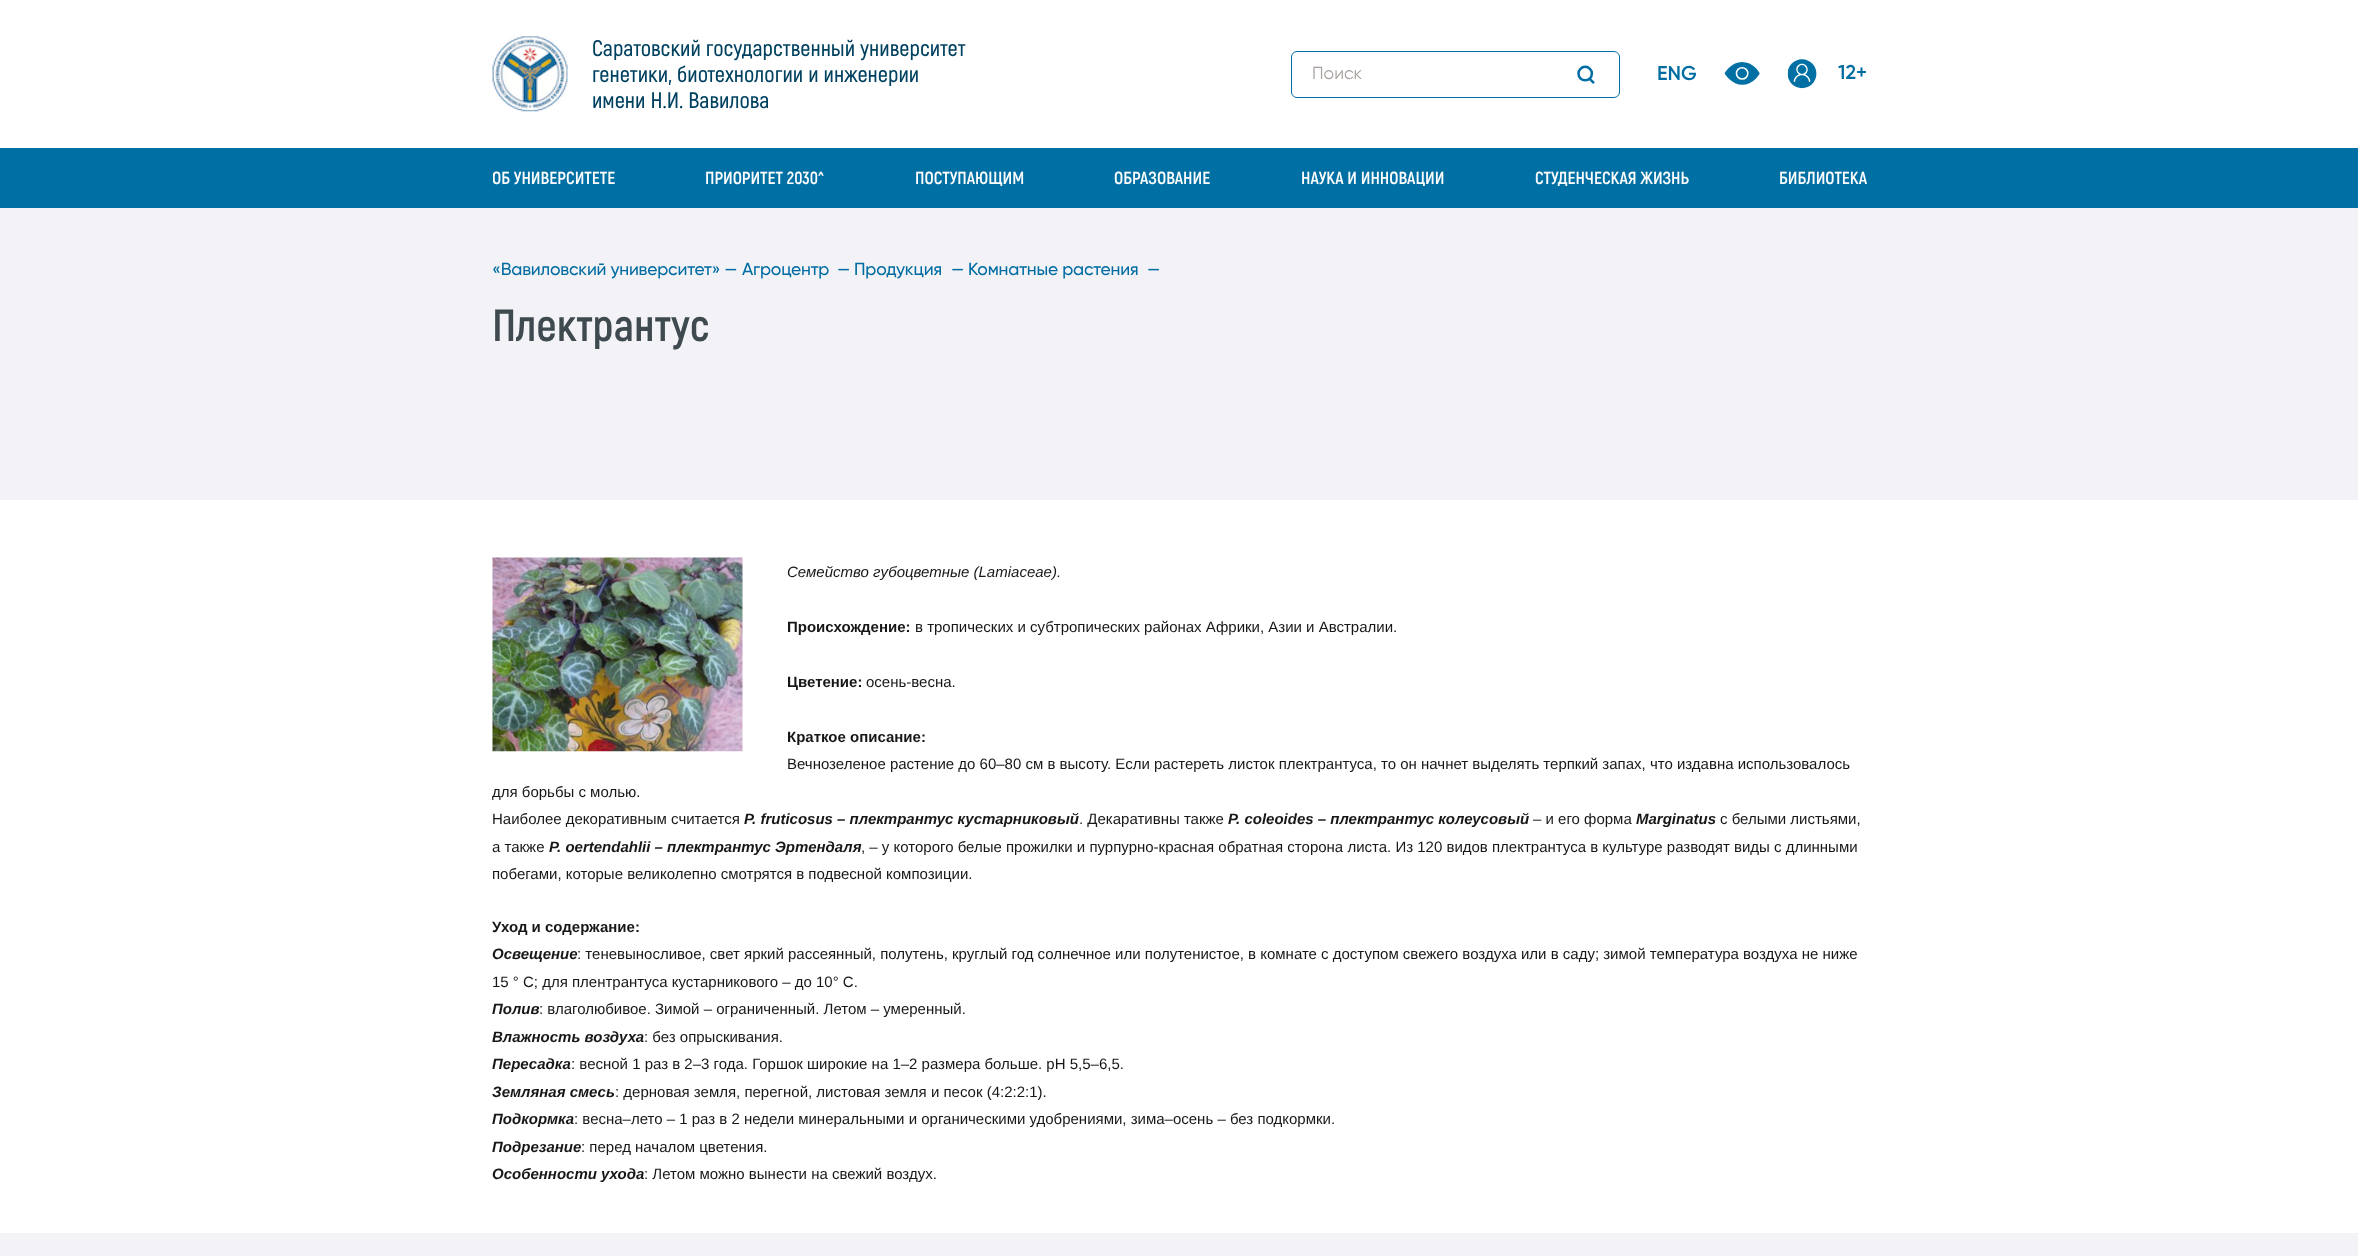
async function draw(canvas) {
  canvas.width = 2358;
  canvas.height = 1256;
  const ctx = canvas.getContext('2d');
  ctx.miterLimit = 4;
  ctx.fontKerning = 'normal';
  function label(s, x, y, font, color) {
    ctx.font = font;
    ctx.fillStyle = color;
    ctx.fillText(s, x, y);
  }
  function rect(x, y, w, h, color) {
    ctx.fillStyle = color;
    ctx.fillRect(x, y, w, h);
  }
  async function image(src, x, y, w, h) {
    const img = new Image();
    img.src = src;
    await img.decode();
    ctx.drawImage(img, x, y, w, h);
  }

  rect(0, 0, 2358, 1256, '#fff');
  await image('assets/img1.png', 492, 36, 76, 76);
  label('Саратовский государственный университет', 592, 56, '600 22.5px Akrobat', '#004160');
  label('генетики, биотехнологии и инженерии', 592, 82, '600 22.5px Akrobat', '#004160');
  label('имени Н.И. Вавилова', 592, 108, '600 22.5px Akrobat', '#004160');
  label('12+', 1838, 79, '600 20px Gilroy', '#006ca2');
  ctx.beginPath();
  ctx.roundRect(1291.5, 51.5, 328, 46, 5.5);
  ctx.strokeStyle = '#0070a4';
  ctx.stroke();
  label('Поиск', 1312, 79, '17.5px Gilroy', '#a7a19f');
  await image('assets/img2.png', 1577, 65, 18, 19);
  label('ENG', 1657, 80, '600 20px Gilroy', '#006ca2');
  await image('assets/img3.png', 1724, 61, 36, 25);
  await image('assets/img4.png', 1787, 59, 30, 30);
  rect(0, 148, 2358, 60, '#0070a4');
  ctx.save();
  ctx.beginPath();
  ctx.rect(493, 148, 1375, 60);
  ctx.clip();
  label('ОБ УНИВЕРСИТЕТЕ', 492, 184, 'bold 17.5px Akrobat', '#fff');
  ctx.restore();
  label('ПРИОРИТЕТ 2030^', 705, 184, 'bold 17.5px Akrobat', '#fff');
  label('ПОСТУПАЮЩИМ', 915, 184, 'bold 17.5px Akrobat', '#fff');
  label('ОБРАЗОВАНИЕ', 1114, 184, 'bold 17.5px Akrobat', '#fff');
  label('НАУКА И ИННОВАЦИИ', 1301, 184, 'bold 17.5px Akrobat', '#fff');
  label('СТУДЕНЧЕСКАЯ ЖИЗНЬ', 1535, 184, 'bold 17.5px Akrobat', '#fff');
  label('БИБЛИОТЕКА', 1779, 184, 'bold 17.5px Akrobat', '#fff');
  rect(0, 208, 2358, 292, '#f3f3f7');
  ctx.letterSpacing = '-0.2px';
  label('«Вавиловский университет» —', 492, 275, '500 17.5px Gilroy', '#006ca2');
  label('Агроцентр', 742, 275, '500 17.5px Gilroy', '#006ca2');
  label('—', 837, 275, '500 17.5px Gilroy', '#006ca2');
  label('Продукция', 854, 275, '500 17.5px Gilroy', '#006ca2');
  label('—', 951, 275, '500 17.5px Gilroy', '#006ca2');
  label('Комнатные растения', 968, 275, '500 17.5px Gilroy', '#006ca2');
  label('—', 1147, 275, '500 17.5px Gilroy', '#006ca2');
  ctx.letterSpacing = '0px';
  label('Плектрантус', 492, 341, 'bold 45px Akrobat', '#3e4a4f');
  await image('assets/img5.png', 492, 557, 251, 195);
  label('Семейство губоцветные (Lamiaceae).', 787, 577, 'italic 15px Liberation Sans', '#181717');
  label('Происхождение:', 787, 632, 'bold 15px Liberation Sans', '#181717');
  label('в тропических и субтропических районах Африки, Азии и Австралии.', 915, 632, '15px Liberation Sans', '#181717');
  label('Цветение:', 787, 687, 'bold 15px Liberation Sans', '#181717');
  label('осень-весна.', 866, 687, '15px Liberation Sans', '#181717');
  label('Краткое описание:', 787, 742, 'bold 15px Liberation Sans', '#181717');
  label('Вечнозеленое растение до 60–80 см в высоту. Если растереть листок плектрантуса, то он начнет выделять терпкий запах, что издавна использовалось', 787, 769, '15px Liberation Sans', '#181717');
  label('для борьбы с молью.', 492, 797, '15px Liberation Sans', '#181717');
  label('Наиболее декоративным считается', 492, 824, '15px Liberation Sans', '#181717');
  label('P. fruticosus – плектрантус кустарниковый', 744, 824, 'italic bold 15px Liberation Sans', '#181717');
  label('. Декаративны также', 1079, 824, '15px Liberation Sans', '#181717');
  label('P. coleoides – плектрантус колеусовый', 1228, 824, 'italic bold 15px Liberation Sans', '#181717');
  label('– и его форма', 1533, 824, '15px Liberation Sans', '#181717');
  label('Marginatus', 1636, 824, 'italic bold 15px Liberation Sans', '#181717');
  label('с белыми листьями,', 1720, 824, '15px Liberation Sans', '#181717');
  label('а также', 492, 852, '15px Liberation Sans', '#181717');
  label('P. oertendahlii – плектрантус Эртендаля', 549, 852, 'italic bold 15px Liberation Sans', '#181717');
  label(', – у которого белые прожилки и пурпурно-красная обратная сторона листа. Из 120 видов плектрантуса в культуре разводят виды с длинными', 861, 852, '15px Liberation Sans', '#181717');
  label('побегами, которые великолепно смотрятся в подвесной композиции.', 492, 879, '15px Liberation Sans', '#181717');
  label('Уход и содержание:', 492, 932, 'bold 15px Liberation Sans', '#181717');
  label('Освещение', 492, 959, 'italic bold 15px Liberation Sans', '#181717');
  label(': теневыносливое, свет яркий рассеянный, полутень, круглый год солнечное или полутенистое, в комнате с доступом свежего воздуха или в саду; зимой температура воздуха не ниже', 577, 959, '15px Liberation Sans', '#181717');
  label('15 ° С; для плентрантуса кустарникового – до 10° С.', 492, 987, '15px Liberation Sans', '#181717');
  label('Полив', 492, 1014, 'italic bold 15px Liberation Sans', '#181717');
  label(': влаголюбивое. Зимой – ограниченный. Летом – умеренный.', 539, 1014, '15px Liberation Sans', '#181717');
  label('Влажность воздуха', 492, 1042, 'italic bold 15px Liberation Sans', '#181717');
  label(': без опрыскивания.', 644, 1042, '15px Liberation Sans', '#181717');
  label('Пересадка', 492, 1069, 'italic bold 15px Liberation Sans', '#181717');
  label(': весной 1 раз в 2–3 года. Горшок широкие на 1–2 размера больше. рН 5,5–6,5.', 571, 1069, '15px Liberation Sans', '#181717');
  label('Земляная смесь', 492, 1097, 'italic bold 15px Liberation Sans', '#181717');
  label(': дерновая земля, перегной, листовая земля и песок (4:2:2:1).', 615, 1097, '15px Liberation Sans', '#181717');
  label('Подкормка', 492, 1124, 'italic bold 15px Liberation Sans', '#181717');
  label(': весна–лето – 1 раз в 2 недели минеральными и органическими удобрениями, зима–осень – без подкормки.', 574, 1124, '15px Liberation Sans', '#181717');
  label('Подрезание', 492, 1152, 'italic bold 15px Liberation Sans', '#181717');
  label(': перед началом цветения.', 581, 1152, '15px Liberation Sans', '#181717');
  label('Особенности ухода', 492, 1179, 'italic bold 15px Liberation Sans', '#181717');
  label(': Летом можно вынести на свежий воздух.', 644, 1179, '15px Liberation Sans', '#181717');
  rect(0, 1233, 2358, 23, '#f3f3f7');
}

draw(document.querySelector('canvas'));
